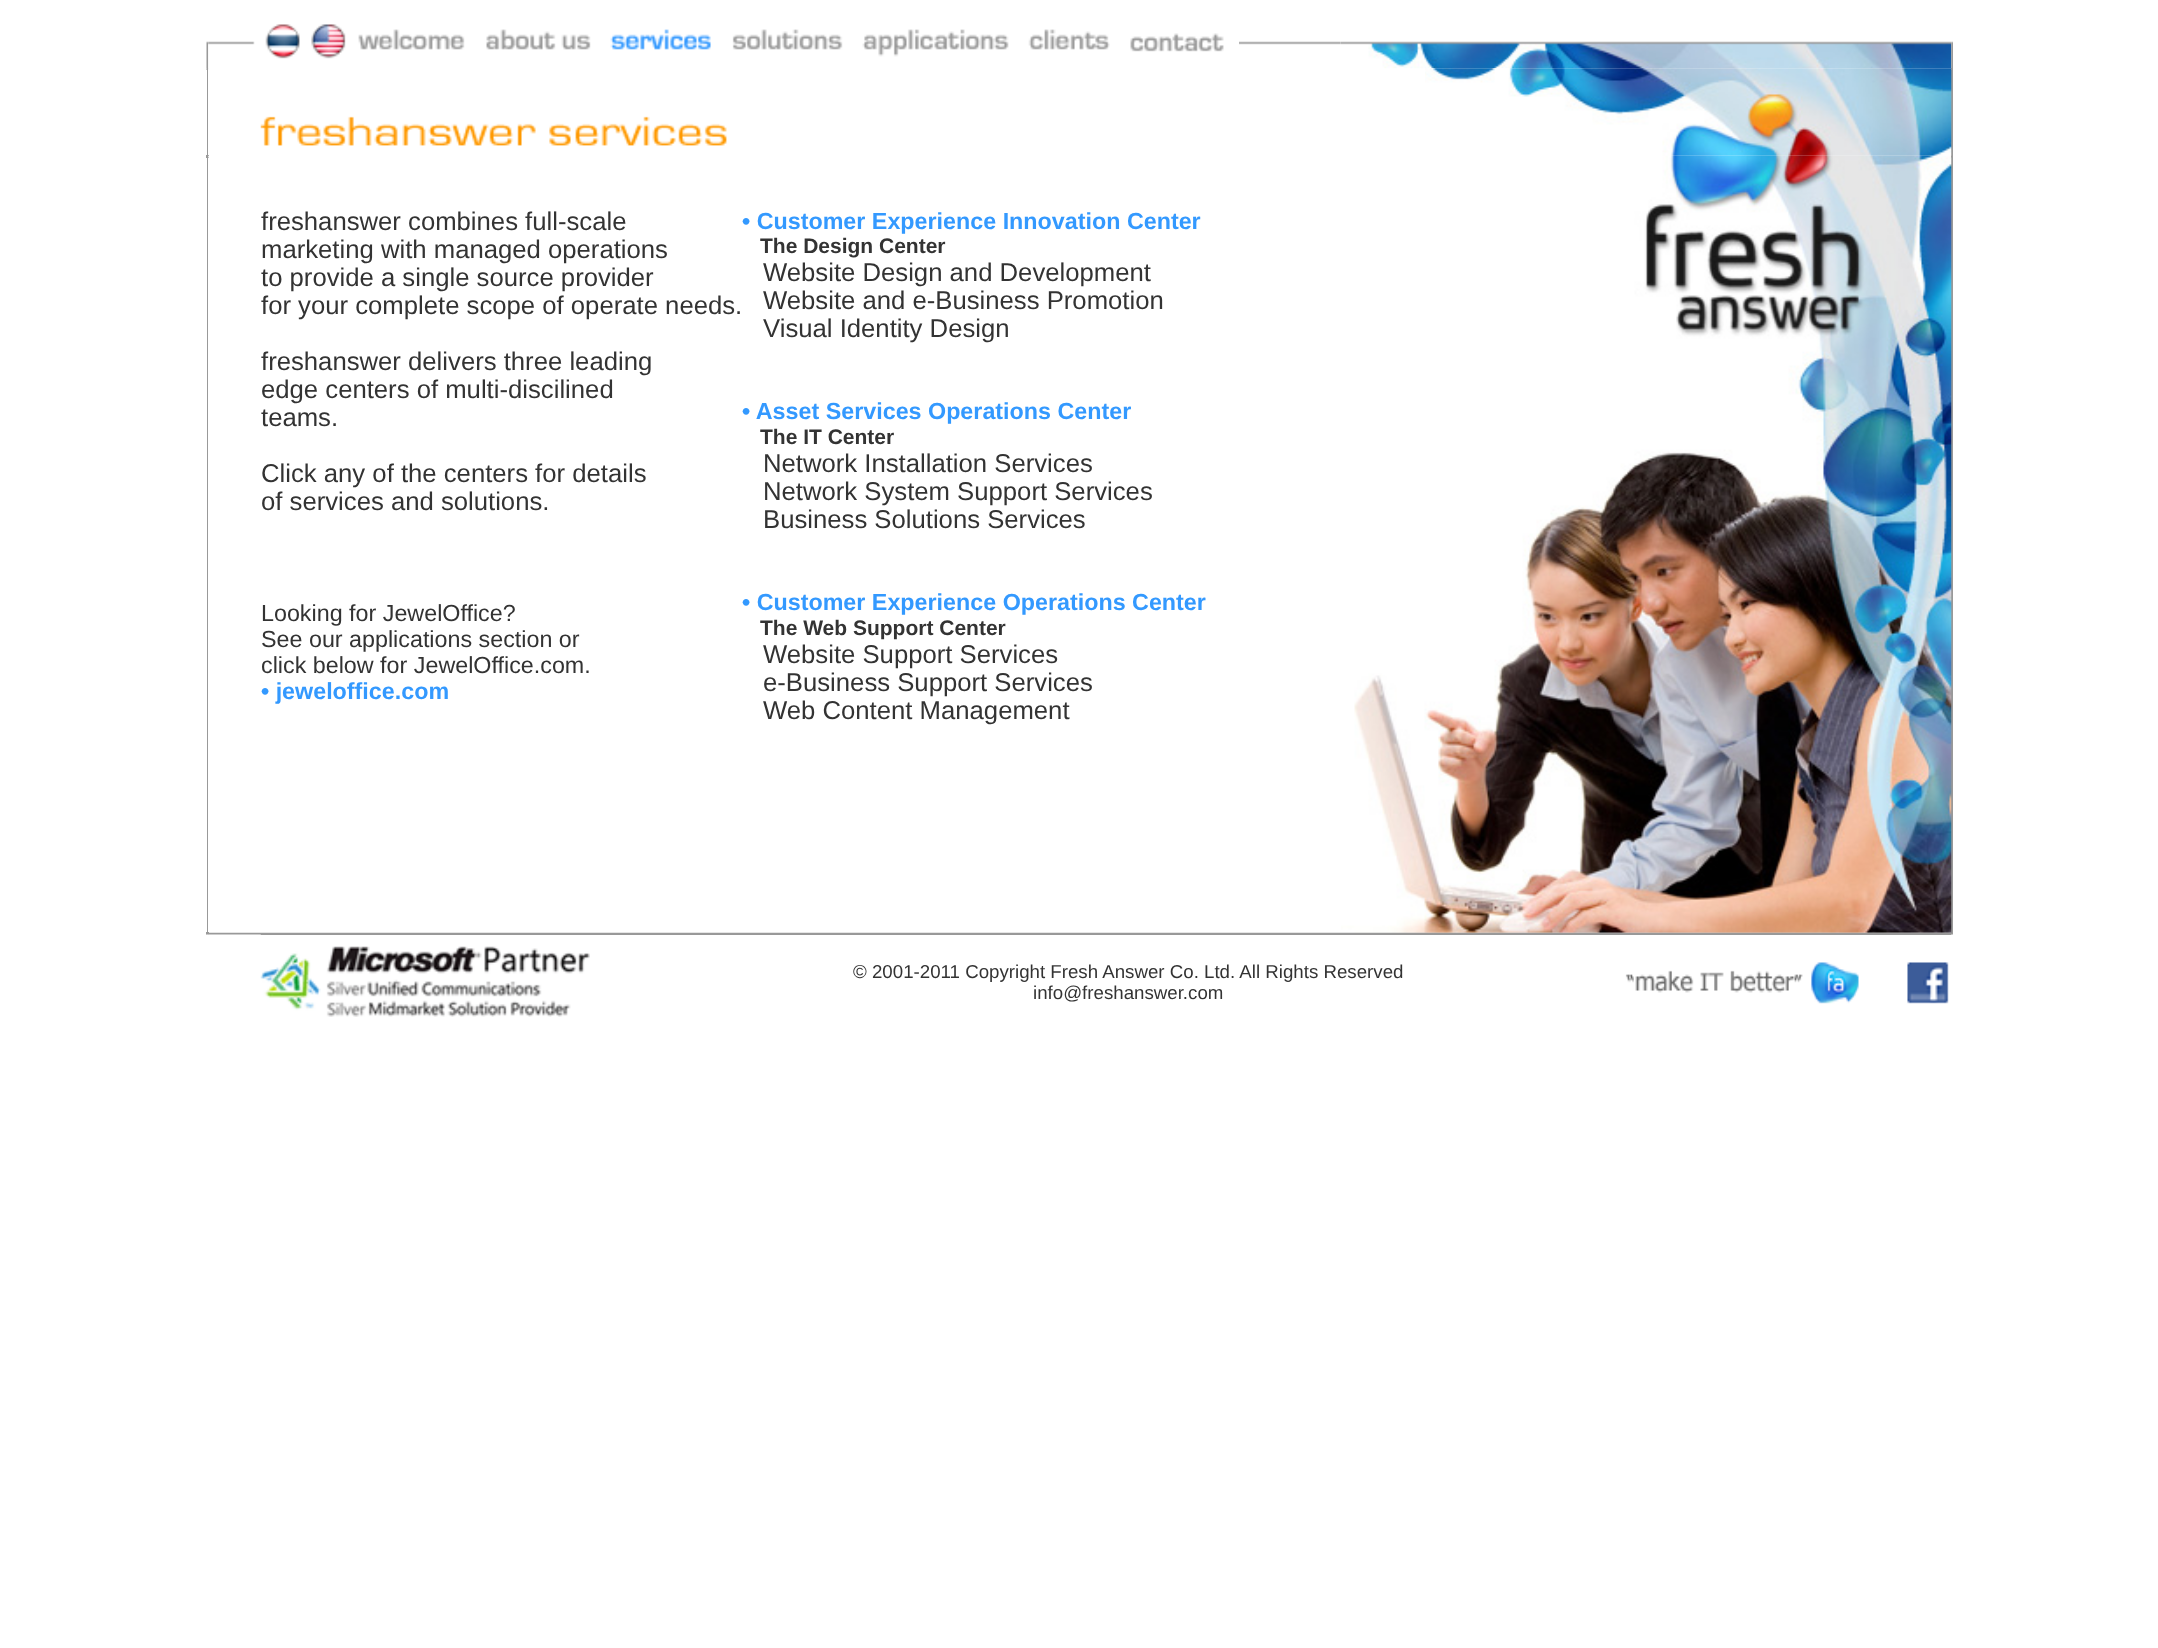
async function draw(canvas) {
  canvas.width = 2158;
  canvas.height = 1648;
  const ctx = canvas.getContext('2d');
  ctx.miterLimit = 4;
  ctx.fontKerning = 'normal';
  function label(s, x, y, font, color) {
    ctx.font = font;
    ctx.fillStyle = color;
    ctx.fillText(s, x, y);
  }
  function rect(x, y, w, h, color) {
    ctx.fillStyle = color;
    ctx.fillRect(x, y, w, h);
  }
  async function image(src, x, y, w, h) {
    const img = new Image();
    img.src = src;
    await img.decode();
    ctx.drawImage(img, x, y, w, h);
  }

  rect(0, 0, 2158, 1648, '#fff');
  rect(207, 68, 1, 865, '#999');
  await image('assets/img1.png', 206, 41, 3, 28);
  await image('assets/img2.png', 208, 41, 47, 27);
  await image('assets/img3.png', 265, 24, 35, 35);
  await image('assets/img4.png', 311, 24, 35, 35);
  await image('assets/img5.png', 358, 29, 107, 21);
  await image('assets/img6.png', 486, 29, 105, 21);
  await image('assets/img7.png', 610, 29, 101, 21);
  await image('assets/img8.png', 732, 29, 111, 21);
  await image('assets/img9.png', 862, 29, 147, 28);
  await image('assets/img10.png', 1028, 29, 82, 21);
  await image('assets/img11.png', 1130, 33, 94, 19);
  await image('assets/img12.png', 1239, 41, 102, 4);
  rect(1951, 68, 2, 865, '#999');
  await image('assets/img13.png', 1340, 41, 612, 28);
  await image('assets/img14.png', 1951, 41, 2, 27);
  rect(206, 68, 1, 1, '#f7f7f7');
  await image('assets/img15.png', 206, 68, 3, 2);
  await image('assets/img16.png', 208, 68, 1, 2);
  await image('assets/img17.png', 1425, 68, 527, 88);
  await image('assets/img18.png', 260, 116, 467, 30);
  await image('assets/img19.png', 1951, 68, 1, 2);
  rect(206, 155, 3, 3, '#999');
  await image('assets/img20.png', 208, 155, 1, 3);
  await image('assets/img21.png', 1341, 155, 611, 778);
  await image('assets/img22.png', 1951, 155, 1, 3);
  label('freshanswer combines full-scale', 261, 230, '25.7px Liberation Sans', '#333');
  label('marketing with managed operations', 261, 258, '25.7px Liberation Sans', '#333');
  label('to provide a single source provider', 261, 286, '25.7px Liberation Sans', '#333');
  label('for your complete scope of operate needs.', 261, 314, '25.7px Liberation Sans', '#333');
  label('freshanswer delivers three leading', 261, 370, '25.7px Liberation Sans', '#333');
  label('edge centers of multi-discilined', 261, 398, '25.7px Liberation Sans', '#333');
  label('teams.', 261, 426, '25.7px Liberation Sans', '#333');
  label('Click any of the centers for details', 261, 482, '25.7px Liberation Sans', '#333');
  label('of services and solutions.', 261, 510, '25.7px Liberation Sans', '#333');
  label('Looking for JewelOffice?', 261, 621, '23.3px Liberation Sans', '#333');
  label('See our applications section or', 261, 647, '23.3px Liberation Sans', '#333');
  label('click below for JewelOffice.com.', 261, 673, '23.3px Liberation Sans', '#333');
  label('• jeweloffice.com', 261, 699, 'bold 23.3px Liberation Sans', '#39f');
  label('• Customer Experience Innovation Center', 742, 229, 'bold 23.3px Liberation Sans', '#39f');
  label('The Design Center', 760, 253, 'bold 21px Liberation Sans', '#333');
  label('Website Design and Development', 763, 281, '25.7px Liberation Sans', '#333');
  label('Website and e-Business Promotion', 763, 309, '25.7px Liberation Sans', '#333');
  label('Visual Identity Design', 763, 337, '25.7px Liberation Sans', '#333');
  label('• Asset Services Operations Center', 742, 419, 'bold 23.3px Liberation Sans', '#39f');
  label('The IT Center', 760, 444, 'bold 21px Liberation Sans', '#333');
  label('Network Installation Services', 763, 472, '25.7px Liberation Sans', '#333');
  label('Network System Support Services', 763, 500, '25.7px Liberation Sans', '#333');
  label('Business Solutions Services', 763, 528, '25.7px Liberation Sans', '#333');
  label('• Customer Experience Operations Center', 742, 610, 'bold 23.3px Liberation Sans', '#39f');
  label('The Web Support Center', 760, 635, 'bold 21px Liberation Sans', '#333');
  label('Website Support Services', 763, 663, '25.7px Liberation Sans', '#333');
  label('e-Business Support Services', 763, 691, '25.7px Liberation Sans', '#333');
  label('Web Content Management', 763, 719, '25.7px Liberation Sans', '#333');
  rect(208, 933, 1745, 2, '#999');
  rect(206, 932, 3, 3, '#999');
  rect(209, 932, 1742, 1, '#97979740');
  rect(206, 934, 1, 1, '#b3b3b3');
  await image('assets/img23.png', 206, 934, 3, 1);
  await image('assets/img24.png', 208, 934, 53, 1);
  await image('assets/img25.png', 1951, 934, 2, 1);
  await image('assets/img26.png', 260, 946, 330, 71);
  label('© 2001-2011 Copyright Fresh Answer Co. Ltd. All Rights Reserved', 853, 978, '18.7px Liberation Sans', '#333');
  label('info@freshanswer.com', 1033, 999, '18.7px Liberation Sans', '#333');
  await image('assets/img27.png', 1625, 962, 234, 42);
  await image('assets/img28.png', 1907, 962, 42, 42);
}

draw(document.querySelector('canvas'));
